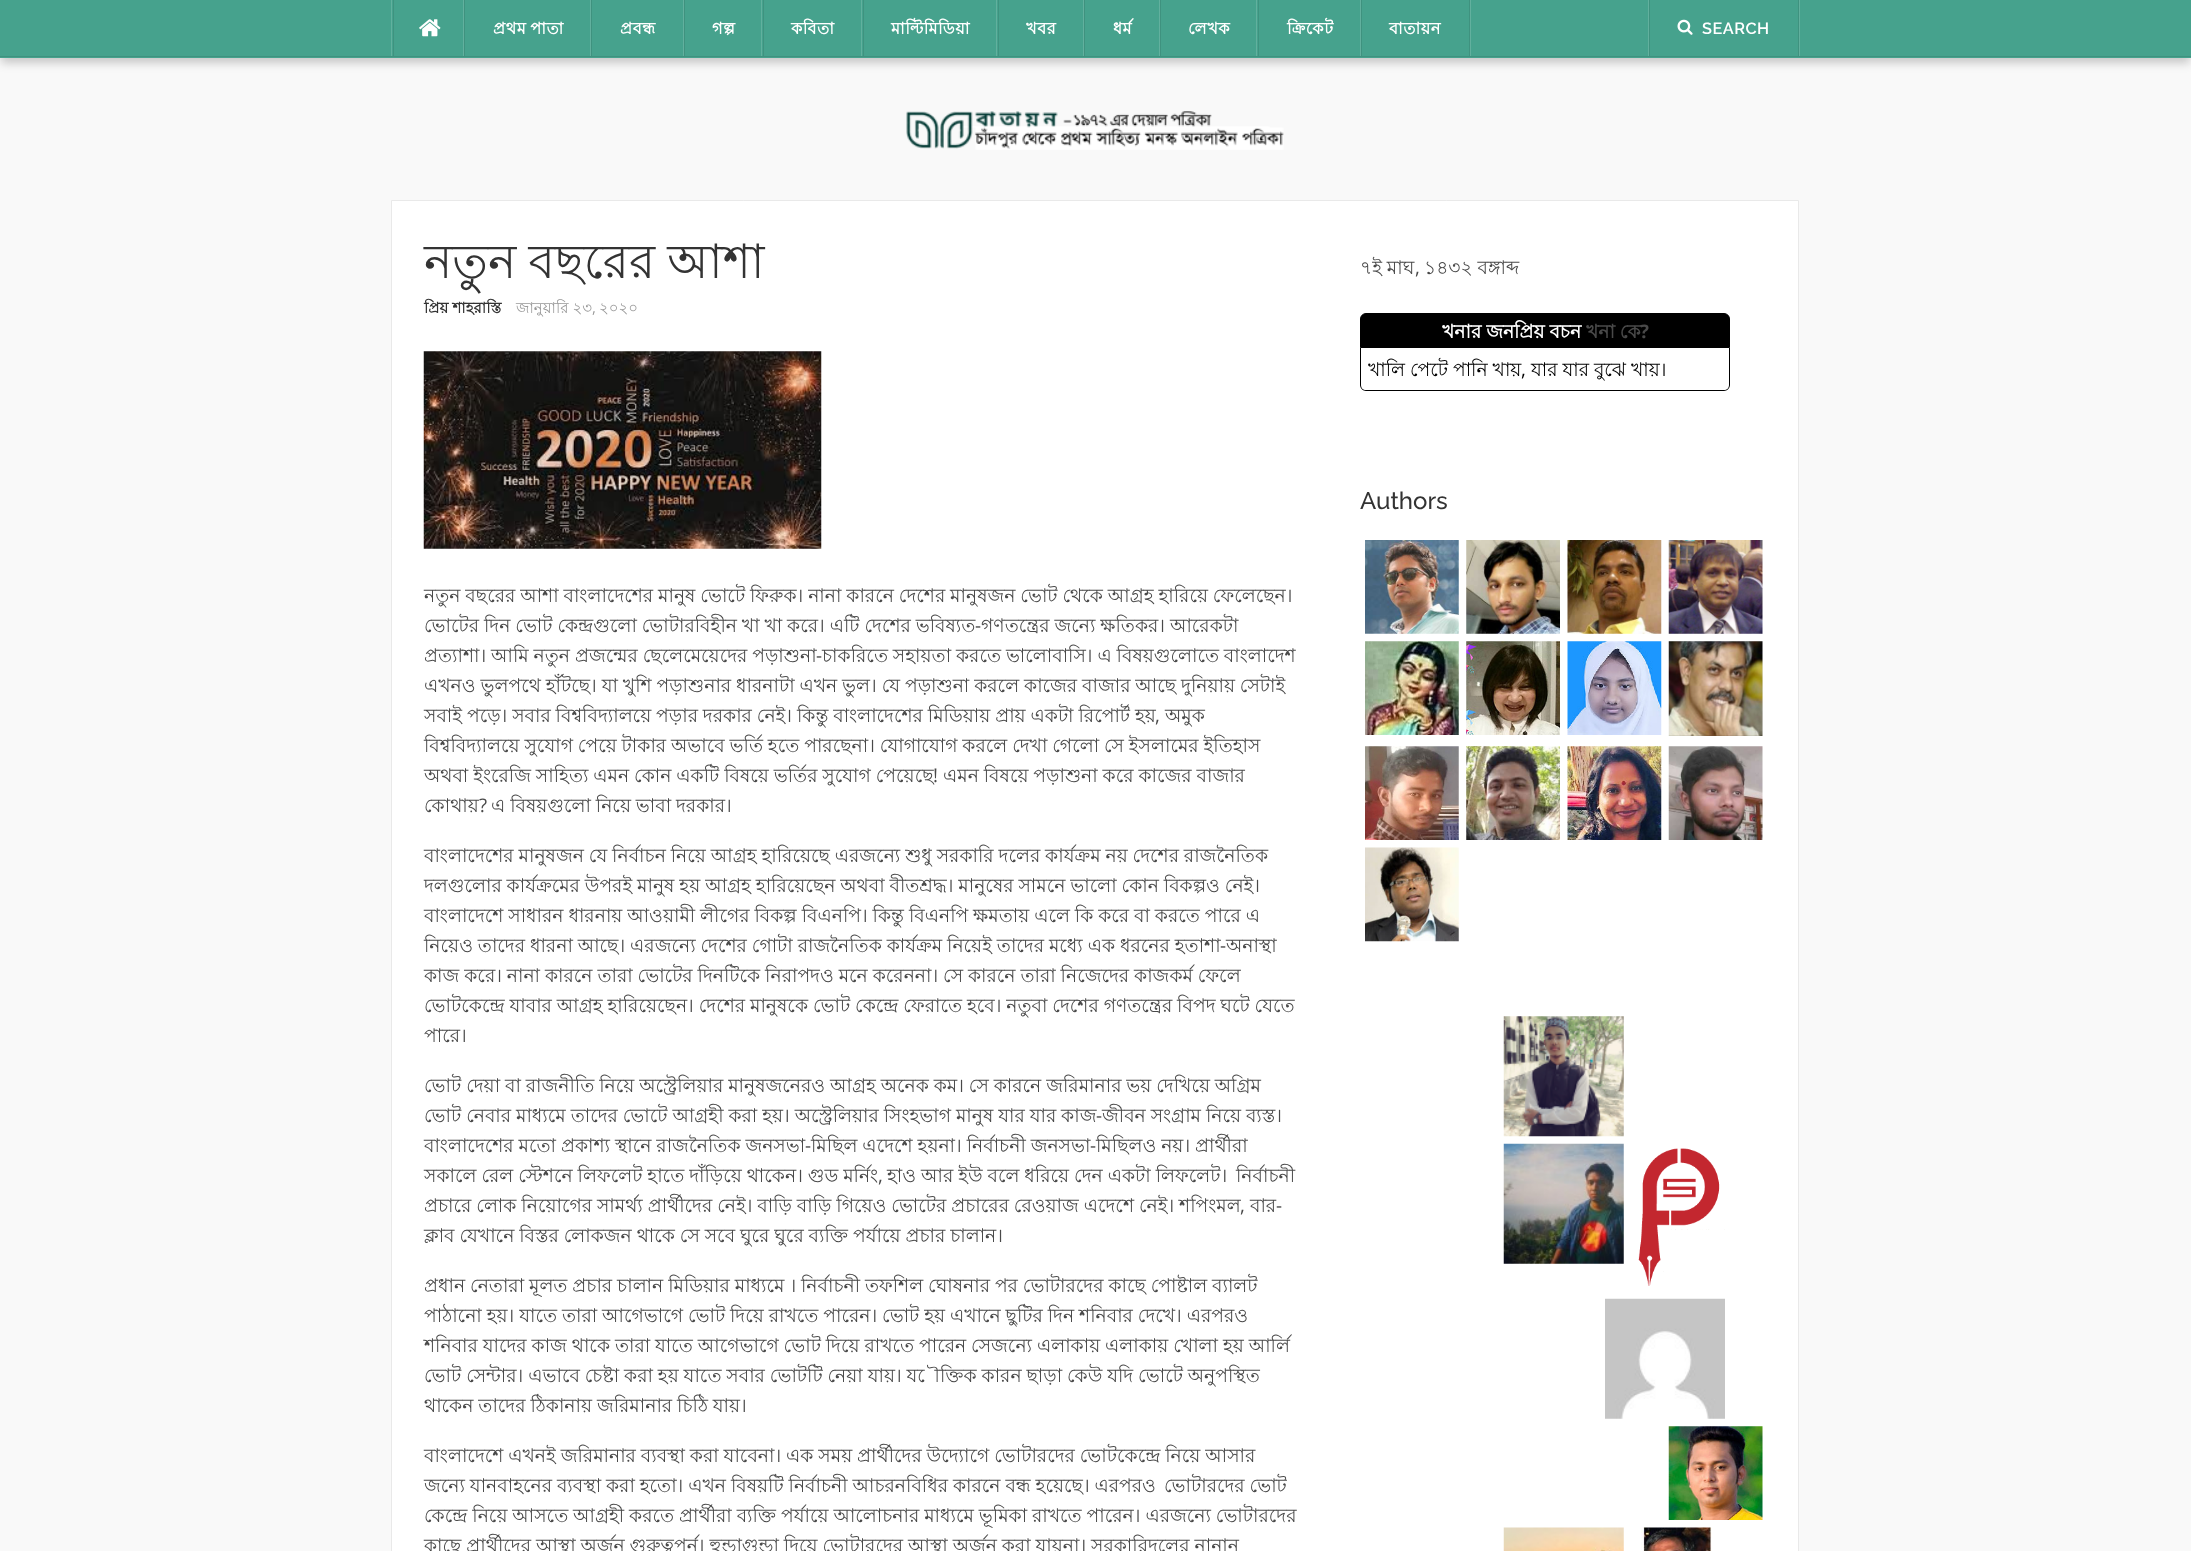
async function draw(canvas) {
  canvas.width = 2191;
  canvas.height = 1551;
  const ctx = canvas.getContext('2d');
  ctx.miterLimit = 4;
  ctx.fontKerning = 'normal';
  function label(s, x, y, font, color) {
    ctx.font = font;
    ctx.fillStyle = color;
    ctx.fillText(s, x, y);
  }
  function rect(x, y, w, h, color) {
    ctx.fillStyle = color;
    ctx.fillRect(x, y, w, h);
  }
  async function image(src, x, y, w, h) {
    const img = new Image();
    img.src = src;
    await img.decode();
    ctx.drawImage(img, x, y, w, h);
  }
  let path;

  rect(0, 0, 2191, 1551, '#f9f9f9');
  ctx.fillStyle = '#00000033';
  ctx.filter = 'blur(5px)';
  ctx.beginPath();
  ctx.rect(1, 8, 2189, 55);
  ctx.fill();
  ctx.filter = 'none';
  rect(0, 0, 2191, 58, '#46a28d');
  rect(391, 0, 1, 56, '#62b09e');
  rect(393, 0, 1, 56, '#3f927f');
  await image('assets/img1.png', 419, 19, 22, 18);
  rect(463, 0, 1, 56, '#62b09e');
  rect(464, 0, 1, 56, '#3f927f');
  ctx.letterSpacing = '0.5px';
  ctx.wordSpacing = '-1px';
  label('প্রথম পাতা', 493, 34, 'bold 16.25px Lohit Bengali', '#fff');
  rect(590, 0, 1, 56, '#62b09e');
  rect(591, 0, 1, 56, '#3f927f');
  ctx.wordSpacing = '0px';
  label('প্রবন্ধ', 620, 34, 'bold 16.25px Lohit Bengali', '#fff');
  rect(683, 0, 1, 56, '#62b09e');
  rect(684, 0, 1, 56, '#3f927f');
  label('গল্প', 712, 34, 'bold 16.25px Lohit Bengali', '#fff');
  rect(761, 0, 1, 56, '#62b09e');
  rect(763, 0, 1, 56, '#3f927f');
  label('কবিতা', 791, 34, 'bold 16.25px Lohit Bengali', '#fff');
  rect(861, 0, 1, 56, '#62b09e');
  rect(863, 0, 1, 56, '#3f927f');
  label('মাল্টিমিডিয়া', 891, 34, 'bold 16.25px Lohit Bengali', '#fff');
  rect(996, 0, 1, 56, '#62b09e');
  rect(998, 0, 1, 56, '#3f927f');
  label('খবর', 1026, 34, 'bold 16.25px Lohit Bengali', '#fff');
  rect(1083, 0, 1, 56, '#62b09e');
  rect(1084, 0, 1, 56, '#3f927f');
  label('ধর্ম', 1113, 34, 'bold 16.25px Lohit Bengali', '#fff');
  rect(1159, 0, 1, 56, '#62b09e');
  rect(1160, 0, 1, 56, '#3f927f');
  label('লেখক', 1188, 34, 'bold 16.25px Lohit Bengali', '#fff');
  rect(1256, 0, 1, 56, '#62b09e');
  rect(1258, 0, 1, 56, '#3f927f');
  label('ক্রিকেট', 1287, 34, 'bold 16.25px Lohit Bengali', '#fff');
  rect(1360, 0, 1, 56, '#62b09e');
  rect(1361, 0, 1, 56, '#3f927f');
  label('বাতায়ন', 1389, 34, 'bold 16.25px Lohit Bengali', '#fff');
  rect(1469, 0, 1, 56, '#3f927f');
  rect(1470, 0, 1, 56, '#62b09e');
  rect(1648, 0, 1, 56, '#62b09e');
  rect(1649, 0, 1, 56, '#3f927f');
  await image('assets/img2.png', 1677, 19, 16, 16);
  label('SEARCH', 1702, 34, '600 16.25px Raleway', '#fff');
  rect(1798, 0, 1, 56, '#3f927f');
  rect(1799, 0, 1, 56, '#62b09e');
  rect(0, 56, 2191, 1, '#3f927f');
  await image('assets/img3.png', 906, 111, 378, 39);
  ctx.fillStyle = '#fff';
  ctx.beginPath();
  ctx.rect(391.5, 200.5, 1407, 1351);
  ctx.fill();
  ctx.strokeStyle = '#e9e9e9';
  ctx.stroke();
  ctx.letterSpacing = '0px';
  ctx.wordSpacing = '-1px';
  label('নতুন বছরের আশা', 424, 278, '47.5px Lohit Bengali', '#333');
  ctx.wordSpacing = '0px';
  label('প্রিয় শাহরাস্তি', 424, 313, 'bold 15px Lohit Bengali', '#333');
  label('জানুয়ারি ২৩', 516, 313, '15px Lohit Bengali', '#999');
  label(',', 592, 313, '15px Open Sans', '#999');
  label('২০২০', 599, 313, '15px Lohit Bengali', '#999');
  await image('assets/img4.png', 423, 351, 399, 198);
  ctx.wordSpacing = '-0.3px';
  label('নতুন বছরের আশা বাংলাদেশের মানুষ ভোটে ফিরুক। নানা কারনে দেশের মানুষজন ভোট থেকে আগ্রহ হারিয়ে ফেলেছেন।', 424, 602, '18.75px Lohit Bengali', '#494949');
  label('ভোটের দিন ভোট কেন্দ্রগুলো ভোটারবিহীন খা খা করে। এটি দেশের ভবিষ্যত', 424, 632, '18.75px Lohit Bengali', '#494949');
  ctx.wordSpacing = '0px';
  label('-', 975, 632, '18.75px Open Sans', '#494949');
  ctx.wordSpacing = '-0.3px';
  label('গণতন্ত্রের জন্যে ক্ষতিকর। আরেকটা', 981, 632, '18.75px Lohit Bengali', '#494949');
  label('প্রত্যাশা। আমি নতুন প্রজন্মের ছেলেমেয়েদের পড়াশুনা', 424, 662, '18.75px Lohit Bengali', '#494949');
  ctx.wordSpacing = '0px';
  label('-', 816, 662, '18.75px Open Sans', '#494949');
  ctx.wordSpacing = '-0.3px';
  label('চাকরিতে সহায়তা করতে ভালোবাসি। এ বিষয়গুলোতে বাংলাদেশ', 822, 662, '18.75px Lohit Bengali', '#494949');
  label('এখনও ভুলপথে হাঁটছে। যা খুশি পড়াশুনার ধারনাটা এখন ভুল। যে পড়াশুনা করলে কাজের বাজার আছে দুনিয়ায় সেটাই', 424, 692, '18.75px Lohit Bengali', '#494949');
  label('সবাই পড়ে। সবার বিশ্ববিদ্যালয়ে পড়ার দরকার নেই। কিন্তু বাংলাদেশের মিডিয়ায় প্রায় একটা রিপোর্ট হয়', 424, 722, '18.75px Lohit Bengali', '#494949');
  ctx.wordSpacing = '0px';
  label(',', 1155, 722, '18.75px Open Sans', '#494949');
  label('অমুক', 1165, 722, '18.75px Lohit Bengali', '#494949');
  ctx.wordSpacing = '-0.3px';
  label('বিশ্ববিদ্যালয়ে সুযোগ পেয়ে টাকার অভাবে ভর্তি হতে পারছেনা। যোগাযোগ করলে দেখা গেলো সে ইসলামের ইতিহাস', 424, 752, '18.75px Lohit Bengali', '#494949');
  label('অথবা ইংরেজি সাহিত্য এমন কোন একটি বিষয়ে ভর্তির সুযোগ পেয়েছে', 424, 782, '18.75px Lohit Bengali', '#494949');
  ctx.wordSpacing = '0px';
  label('!', 933, 782, '18.75px Open Sans', '#494949');
  ctx.wordSpacing = '-0.3px';
  label('এমন বিষয়ে পড়াশুনা করে কাজের বাজার', 943, 782, '18.75px Lohit Bengali', '#494949');
  ctx.wordSpacing = '0px';
  label('কোথায়', 424, 812, '18.75px Lohit Bengali', '#494949');
  label('?', 479, 812, '18.75px Open Sans', '#494949');
  ctx.wordSpacing = '-0.3px';
  label('এ বিষয়গুলো নিয়ে ভাবা দরকার।', 491, 812, '18.75px Lohit Bengali', '#494949');
  label('বাংলাদেশের মানুষজন যে নির্বাচন নিয়ে আগ্রহ হারিয়েছে এরজন্যে শুধু সরকারি দলের কার্যক্রম নয় দেশের রাজনৈতিক', 424, 862, '18.75px Lohit Bengali', '#494949');
  label('দলগুলোর কার্যক্রমের উপরই মানুষ হয় আগ্রহ হারিয়েছেন অথবা বীতশ্রদ্ধ। মানুষের সামনে ভালো কোন বিকল্পও নেই।', 424, 892, '18.75px Lohit Bengali', '#494949');
  label('বাংলাদেশে সাধারন ধারনায় আওয়ামী লীগের বিকল্প বিএনপি। কিন্তু বিএনপি ক্ষমতায় এলে কি করে বা করতে পারে এ', 424, 922, '18.75px Lohit Bengali', '#494949');
  label('নিয়েও তাদের ধারনা আছে। এরজন্যে দেশের গোটা রাজনৈতিক কার্যক্রম নিয়েই তাদের মধ্যে এক ধরনের হতাশা', 424, 952, '18.75px Lohit Bengali', '#494949');
  ctx.wordSpacing = '0px';
  label('-', 1220, 952, '18.75px Open Sans', '#494949');
  label('অনাস্থা', 1226, 952, '18.75px Lohit Bengali', '#494949');
  ctx.wordSpacing = '-0.3px';
  label('কাজ করে। নানা কারনে তারা ভোটের দিনটিকে নিরাপদও মনে করেননা। সে কারনে তারা নিজেদের কাজকর্ম ফেলে', 424, 982, '18.75px Lohit Bengali', '#494949');
  label('ভোটকেন্দ্রে যাবার আগ্রহ হারিয়েছেন। দেশের মানুষকে ভোট কেন্দ্রে ফেরাতে হবে। নতুবা দেশের গণতন্ত্রের বিপদ ঘটে যেতে', 424, 1012, '18.75px Lohit Bengali', '#494949');
  ctx.wordSpacing = '0px';
  label('পারে।', 424, 1042, '18.75px Lohit Bengali', '#494949');
  ctx.wordSpacing = '-0.3px';
  label('ভোট দেয়া বা রাজনীতি নিয়ে অস্ট্রেলিয়ার মানুষজনেরও আগ্রহ অনেক কম। সে কারনে জরিমানার ভয় দেখিয়ে অগ্রিম', 424, 1092, '18.75px Lohit Bengali', '#494949');
  label('ভোট নেবার মাধ্যমে তাদের ভোটে আগ্রহী করা হয়। অস্ট্রেলিয়ার সিংহভাগ মানুষ যার যার কাজ', 424, 1122, '18.75px Lohit Bengali', '#494949');
  ctx.wordSpacing = '0px';
  label('-', 1096, 1122, '18.75px Open Sans', '#494949');
  ctx.wordSpacing = '-0.3px';
  label('জীবন সংগ্রাম নিয়ে ব্যস্ত।', 1102, 1122, '18.75px Lohit Bengali', '#494949');
  label('বাংলাদেশের মতো প্রকাশ্য স্থানে রাজনৈতিক জনসভা', 424, 1152, '18.75px Lohit Bengali', '#494949');
  ctx.wordSpacing = '0px';
  label('-', 805, 1152, '18.75px Open Sans', '#494949');
  ctx.wordSpacing = '-0.3px';
  label('মিছিল এদেশে হয়না। নির্বাচনী জনসভা', 811, 1152, '18.75px Lohit Bengali', '#494949');
  ctx.wordSpacing = '0px';
  label('-', 1090, 1152, '18.75px Open Sans', '#494949');
  ctx.wordSpacing = '-0.3px';
  label('মিছিলও নয়। প্রার্থীরা', 1096, 1152, '18.75px Lohit Bengali', '#494949');
  ctx.wordSpacing = '-0.25px';
  label('সকালে রেল স্টেশনে লিফলেট হাতে দাঁড়িয়ে থাকেন। গুড মর্নিং', 424, 1182, '18.75px Lohit Bengali', '#494949');
  ctx.wordSpacing = '0px';
  label(',', 878, 1182, '18.75px Open Sans', '#494949');
  ctx.wordSpacing = '-0.25px';
  label('হাও আর ইউ বলে ধরিয়ে দেন একটা লিফলেট।', 887, 1182, '18.75px Lohit Bengali', '#494949');
  ctx.wordSpacing = '0px';
  label('নির্বাচনী', 1236, 1182, '18.75px Lohit Bengali', '#494949');
  ctx.wordSpacing = '-0.3px';
  label('প্রচারে লোক নিয়োগের সামর্থ্য প্রার্থীদের নেই। বাড়ি বাড়ি গিয়েও ভোটের প্রচারের রেওয়াজ এদেশে নেই। শপিংমল', 424, 1212, '18.75px Lohit Bengali', '#494949');
  ctx.wordSpacing = '0px';
  label('বার', 1250, 1212, '18.75px Lohit Bengali', '#494949');
  label('-', 1276, 1212, '18.75px Open Sans', '#494949');
  label(',', 1240, 1212, '18.75px Open Sans', '#494949');
  ctx.wordSpacing = '-0.3px';
  label('ক্লাব যেখানে বিস্তর লোকজন থাকে সে সবে ঘুরে ঘুরে ব্যক্তি পর্যায়ে প্রচার চালান।', 424, 1242, '18.75px Lohit Bengali', '#494949');
  label('প্রধান নেতারা মূলত প্রচার চালান মিডিয়ার মাধ্যমে । নির্বাচনী তফশিল ঘোষনার পর ভোটারদের কাছে পোষ্টাল ব্যালট', 424, 1292, '18.75px Lohit Bengali', '#494949');
  label('পাঠানো হয়। যাতে তারা আগেভাগে ভোট দিয়ে রাখতে পারেন। ভোট হয় এখানে ছুটির দিন শনিবার দেখে। এরপরও', 424, 1322, '18.75px Lohit Bengali', '#494949');
  label('শনিবার যাদের কাজ থাকে তারা যাতে আগেভাগে ভোট দিয়ে রাখতে পারেন সেজন্যে এলাকায় এলাকায় খোলা হয় আর্লি', 424, 1352, '18.75px Lohit Bengali', '#494949');
  label('ভোট সেন্টার। এভাবে চেষ্টা করা হয় যাতে সবার ভোটটি নেয়া যায়। যৌক্তিক কারন ছাড়া কেউ যদি ভোটে অনুপস্থিত', 424, 1382, '18.75px Lohit Bengali', '#494949');
  label('থাকেন তাদের ঠিকানায় জরিমানার চিঠি যায়।', 424, 1412, '18.75px Lohit Bengali', '#494949');
  label('বাংলাদেশে এখনই জরিমানার ব্যবস্থা করা যাবেনা। এক সময় প্রার্থীদের উদ্যোগে ভোটারদের ভোটকেন্দ্রে নিয়ে আসার', 424, 1462, '18.75px Lohit Bengali', '#494949');
  label('জন্যে যানবাহনের ব্যবস্থা করা হতো। এখন বিষয়টি নির্বাচনী আচরনবিধির কারনে বন্ধ হয়েছে। এরপরও', 424, 1492, '18.75px Lohit Bengali', '#494949');
  label('ভোটারদের ভোট', 1164, 1492, '18.75px Lohit Bengali', '#494949');
  label('কেন্দ্রে নিয়ে আসতে আগ্রহী করতে প্রার্থীরা ব্যক্তি পর্যায়ে আলোচনার মাধ্যমে ভূমিকা রাখতে পারেন। এরজন্যে ভোটারদের', 424, 1522, '18.75px Lohit Bengali', '#494949');
  label('কাছে প্রার্থীদের আস্থা অর্জন গুরুত্বপূর্ন। হুন্ডাগুন্ডা দিয়ে ভোটারদের আস্থা অর্জন করা যায়না। সরকারিদলের নানান', 424, 1552, '18.75px Lohit Bengali', '#494949');
  label('৭ই মাঘ', 1360, 274, '18.75px Lohit Bengali', '#494949');
  ctx.wordSpacing = '0px';
  label(',', 1415, 274, '18.75px Open Sans', '#494949');
  ctx.wordSpacing = '-0.3px';
  label('১৪৩২ বঙ্গাব্দ', 1424, 274, '18.75px Lohit Bengali', '#494949');
  ctx.fillStyle = '#000';
  ctx.beginPath();
  ctx.roundRect(1360.5, 313.5, 369, 34, [5.5, 5.5, 0, 0]);
  ctx.fill();
  ctx.strokeStyle = '#000';
  ctx.stroke();
  label('খনার জনপ্রিয় বচন', 1442, 338, 'bold 18.75px Lohit Bengali', '#fff');
  label('খনা কে', 1586, 338, 'bold 18.75px Lohit Bengali', '#494949');
  ctx.wordSpacing = '0px';
  label('?', 1640, 338, 'bold 18.75px Open Sans', '#494949');
  ctx.fillStyle = '#000';
  path = new Path2D('M1360 348H1730V385C1730 388 1727 391 1724 391H1366C1363 391 1360 388 1360 385ZM1361 348H1729V385C1729 388 1727 390 1724 390H1366C1363 390 1361 388 1361 385Z');
  ctx.fill(path, 'evenodd');
  ctx.wordSpacing = '-0.3px';
  label('খালি পেটে পানি খায়', 1368, 376, '18.75px Lohit Bengali', '#000');
  ctx.wordSpacing = '0px';
  label(',', 1521, 376, '18.75px Open Sans', '#000');
  ctx.wordSpacing = '-0.3px';
  label('যার যার বুঝে খায়।', 1531, 376, '18.75px Lohit Bengali', '#000');
  ctx.wordSpacing = '0px';
  label('Authors', 1360, 509, '500 24px Raleway', '#333');
  await image('assets/img5.png', 1365, 540, 94, 94);
  await image('assets/img6.png', 1466, 540, 94, 94);
  await image('assets/img7.png', 1567, 540, 95, 94);
  await image('assets/img8.png', 1668, 540, 95, 94);
  await image('assets/img9.png', 1365, 641, 94, 94);
  await image('assets/img10.png', 1466, 641, 94, 94);
  await image('assets/img11.png', 1567, 641, 95, 94);
  await image('assets/img12.png', 1668, 641, 95, 95);
  await image('assets/img13.png', 1365, 746, 94, 94);
  await image('assets/img14.png', 1466, 746, 94, 94);
  await image('assets/img15.png', 1567, 746, 95, 94);
  await image('assets/img16.png', 1668, 746, 95, 94);
  await image('assets/img17.png', 1365, 847, 94, 95);
  await image('assets/img18.png', 1503, 1016, 121, 121);
  await image('assets/img19.png', 1503, 1143, 121, 121);
  await image('assets/img20.png', 1638, 1148, 87, 138);
  await image('assets/img21.png', 1605, 1298, 120, 121);
  await image('assets/img22.png', 1668, 1426, 95, 94);
  await image('assets/img23.png', 1503, 1527, 121, 24);
  await image('assets/img24.png', 1641, 1527, 71, 24);
}

draw(document.querySelector('canvas'));
